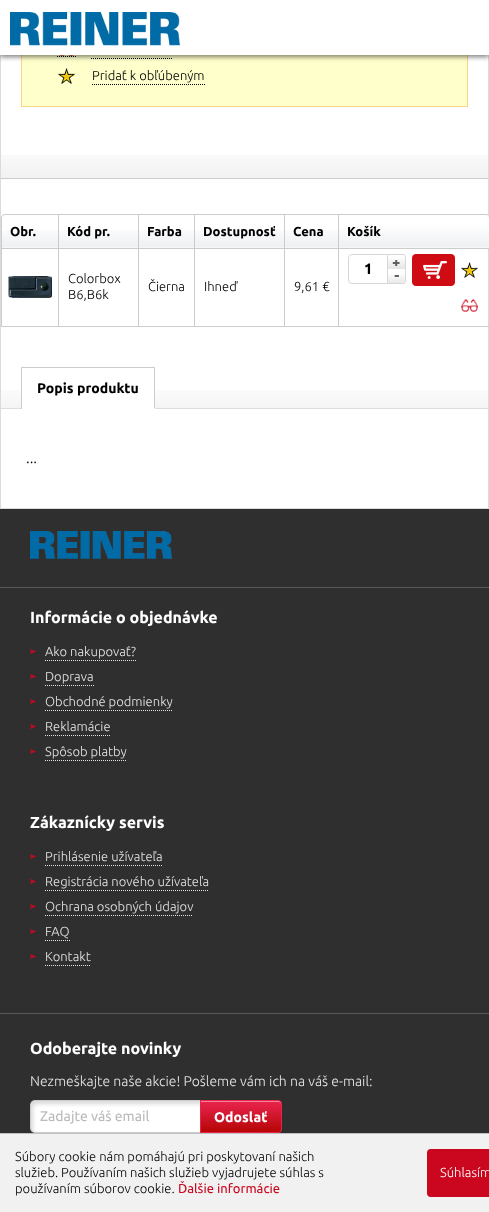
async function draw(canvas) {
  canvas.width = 489;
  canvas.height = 1212;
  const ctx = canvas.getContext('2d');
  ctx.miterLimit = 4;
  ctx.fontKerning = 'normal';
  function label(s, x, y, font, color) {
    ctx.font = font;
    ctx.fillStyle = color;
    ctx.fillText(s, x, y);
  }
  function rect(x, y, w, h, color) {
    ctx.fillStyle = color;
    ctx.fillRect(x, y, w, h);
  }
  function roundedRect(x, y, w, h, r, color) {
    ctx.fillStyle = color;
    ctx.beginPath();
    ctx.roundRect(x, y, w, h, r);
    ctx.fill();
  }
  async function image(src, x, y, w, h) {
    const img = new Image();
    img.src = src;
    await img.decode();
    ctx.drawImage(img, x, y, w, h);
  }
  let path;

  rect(0, 0, 489, 1212, '#fff');
  ctx.strokeStyle = '#dbdbdb';
  ctx.strokeRect(0.5, -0.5, 488, 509);
  rect(22, 55, 445, 51, '#feffca');
  ctx.strokeStyle = '#fcd682';
  ctx.strokeRect(21.5, -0.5, 446, 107);
  path = new Path2D('M57 56.5H76');
  ctx.strokeStyle = '#000';
  ctx.setLineDash([1, 1]);
  ctx.stroke(path);
  path = new Path2D('M91 58.5H172');
  ctx.stroke(path);
  await image('assets/img3.png', 59, 55, 15, 1);
  ctx.fillStyle = '#00000080';
  ctx.filter = 'blur(2.5px)';
  ctx.beginPath();
  ctx.rect(0, 2, 489, 55);
  ctx.fill();
  ctx.filter = 'none';
  rect(0, 0, 489, 55, '#fff');
  await image('assets/img1.png', 10, 12, 170, 34);
  await image('assets/img2.png', 1, 155, 487, 23);
  rect(1, 178, 487, 1, '#ccc');
  await image('assets/img4.png', 58, 68, 17, 16);
  label('Pridať k obľúbeným', 92, 80, '300 13px Ubuntu', '#000');
  path = new Path2D('M92 84.5H205');
  ctx.stroke(path);
  await image('assets/img5.png', 2, 230, 336, 18);
  ctx.fillStyle = '#ccc';
  path = new Path2D('M5 214H338V327H1V218C1 216 3 214 5 214ZM5 215H338V327H2V218C2 216 3 215 5 215Z');
  ctx.fill(path, 'evenodd');
  rect(58, 215, 1, 112, '#ccc');
  rect(2, 248, 57, 1, '#ccc');
  label('Obr.', 10, 236, 'bold 13px Ubuntu', '#000');
  rect(138, 215, 1, 112, '#ccc');
  rect(59, 248, 80, 1, '#ccc');
  label('Kód pr.', 67, 236, 'bold 13px Ubuntu', '#000');
  rect(194, 215, 1, 112, '#ccc');
  rect(139, 248, 56, 1, '#ccc');
  label('Farba', 147, 236, 'bold 13px Ubuntu', '#000');
  rect(284, 215, 1, 112, '#ccc');
  rect(195, 248, 143, 1, '#ccc');
  label('Dostupnosť', 203, 236, 'bold 13px Ubuntu', '#000');
  label('Cena', 293, 236, 'bold 13px Ubuntu', '#000');
  label('Colorbox', 68, 283, '300 13px Ubuntu', '#000');
  label('B6,B6k', 68, 299, '300 13px Ubuntu', '#000');
  rect(2, 326, 336, 1, '#ccc');
  await image('assets/img6.png', 8, 276, 44, 22);
  label('Čierna', 148, 291, '300 13px Ubuntu', '#000');
  label('Ihneď', 204, 291, '300 13px Ubuntu', '#000');
  label('9,61 €', 294, 291, '300 13px Ubuntu', '#000');
  await image('assets/img7.png', 339, 215, 150, 33);
  ctx.fillStyle = '#ccc';
  path = new Path2D('M338 214H486C488 214 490 216 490 218V327H338ZM339 215H486C488 215 489 216 489 218V327H339Z');
  ctx.fill(path, 'evenodd');
  rect(339, 248, 150, 1, '#ccc');
  label('Košík', 347, 236, 'bold 13px Ubuntu', '#000');
  rect(339, 326, 150, 1, '#ccc');
  ctx.beginPath();
  ctx.roundRect(348.5, 254.5, 39, 29, [3.5, 0, 0, 3.5]);
  ctx.strokeStyle = '#d7d7d7';
  ctx.setLineDash([]);
  ctx.stroke();
  label('1', 364, 274, 'bold 15px Ubuntu', '#000');
  await image('assets/img8.png', 388, 254, 18, 15);
  await image('assets/img9.png', 388, 269, 18, 15);
  await image('assets/img10.png', 412, 254, 43, 32);
  await image('assets/img11.png', 461, 262, 17, 16);
  await image('assets/img12.png', 461, 299, 17, 13);
  await image('assets/img13.png', 1, 390, 487, 18);
  rect(1, 408, 487, 1, '#ddd');
  rect(22, 390, 132, 18, '#fff');
  rect(21, 367, 134, 1, '#ccc');
  rect(154, 367, 1, 42, '#ccc');
  rect(21, 408, 134, 1, '#fff');
  rect(21, 367, 1, 42, '#ccc');
  label('Popis produktu', 37, 393, 'bold 14px Ubuntu', '#000');
  label('...', 26, 463, '300 15px Ubuntu', '#000');
  rect(0, 509, 489, 78, '#2f2f2f');
  rect(0, 587, 489, 1, '#595959');
  await image('assets/img14.png', 30, 531, 142, 28);
  rect(0, 588, 489, 545, '#2f2f2f');
  label('Informácie o objednávke', 30, 623, 'bold 16px Ubuntu', '#fff');
  await image('assets/img15.png', 30, 649, 6, 5);
  label('Ako nakupovať?', 45, 656, '300 13px Ubuntu', '#e3e3e3');
  path = new Path2D('M45 660.5H136');
  ctx.strokeStyle = '#e3e3e3';
  ctx.setLineDash([1, 1]);
  ctx.stroke(path);
  await image('assets/img15.png', 30, 674, 6, 5);
  label('Doprava', 45, 681, '300 13px Ubuntu', '#e3e3e3');
  path = new Path2D('M45 685.5H94');
  ctx.stroke(path);
  await image('assets/img15.png', 30, 699, 6, 5);
  label('Obchodné podmienky', 45, 706, '300 13px Ubuntu', '#e3e3e3');
  path = new Path2D('M45 710.5H173');
  ctx.stroke(path);
  await image('assets/img15.png', 30, 724, 6, 5);
  label('Reklamácie', 45, 731, '300 13px Ubuntu', '#e3e3e3');
  path = new Path2D('M45 735.5H111');
  ctx.stroke(path);
  await image('assets/img15.png', 30, 749, 6, 5);
  label('Spôsob platby', 45, 756, '300 13px Ubuntu', '#e3e3e3');
  path = new Path2D('M45 760.5H127');
  ctx.stroke(path);
  rect(0, 1013, 489, 1, '#595959');
  label('Zákaznícky servis', 30, 828, 'bold 16px Ubuntu', '#fff');
  await image('assets/img15.png', 30, 854, 6, 5);
  label('Prihlásenie užívateľa', 45, 861, '300 13px Ubuntu', '#e3e3e3');
  path = new Path2D('M45 865.5H163');
  ctx.stroke(path);
  await image('assets/img15.png', 30, 879, 6, 5);
  label('Registrácia nového užívateľa', 45, 886, '300 13px Ubuntu', '#e3e3e3');
  path = new Path2D('M45 890.5H209');
  ctx.stroke(path);
  await image('assets/img15.png', 30, 904, 6, 5);
  label('Ochrana osobných údajov', 45, 911, '300 13px Ubuntu', '#e3e3e3');
  path = new Path2D('M45 915.5H193');
  ctx.stroke(path);
  await image('assets/img15.png', 30, 929, 6, 5);
  label('FAQ', 45, 936, '300 13px Ubuntu', '#e3e3e3');
  path = new Path2D('M45 940.5H70');
  ctx.stroke(path);
  await image('assets/img15.png', 30, 954, 6, 5);
  label('Kontakt', 45, 961, '300 13px Ubuntu', '#e3e3e3');
  path = new Path2D('M45 965.5H91');
  ctx.stroke(path);
  label('Odoberajte novinky', 30, 1054, 'bold 16px Ubuntu', '#fff');
  label('Nezmeškajte naše akcie! Pošleme vám ich na váš e-mail:', 30, 1086, '300 14px Ubuntu', '#e3e3e3');
  await image('assets/img16.png', 30, 1100, 170, 33);
  label('Zadajte váš email', 40, 1121, '14px Ubuntu', '#bbb');
  await image('assets/img17.png', 200, 1100, 82, 33);
  label('Odoslať', 214, 1122, 'bold 14px Ubuntu', '#fff');
  rect(0, 1134, 489, 78, '#f1f1f1');
  rect(0, 1133, 489, 1, '#c0c0c0');
  label('Súbory cookie nám pomáhajú pri poskytovaní našich', 15, 1161, '300 13px Ubuntu', '#000');
  label('služieb. Používaním našich služieb vyjadrujete súhlas s', 15, 1177, '300 13px Ubuntu', '#000');
  roundedRect(427, 1149, 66, 48, 4, '#ca071f');
  label('Súhlasím', 440, 1177, '300 13px Ubuntu', '#fff');
  label('používaním súborov cookie.', 15, 1193, '300 13px Ubuntu', '#000');
  label('Ďalšie informácie', 178, 1193, '13px Ubuntu', '#ca071f');
}

draw(document.querySelector('canvas'));
